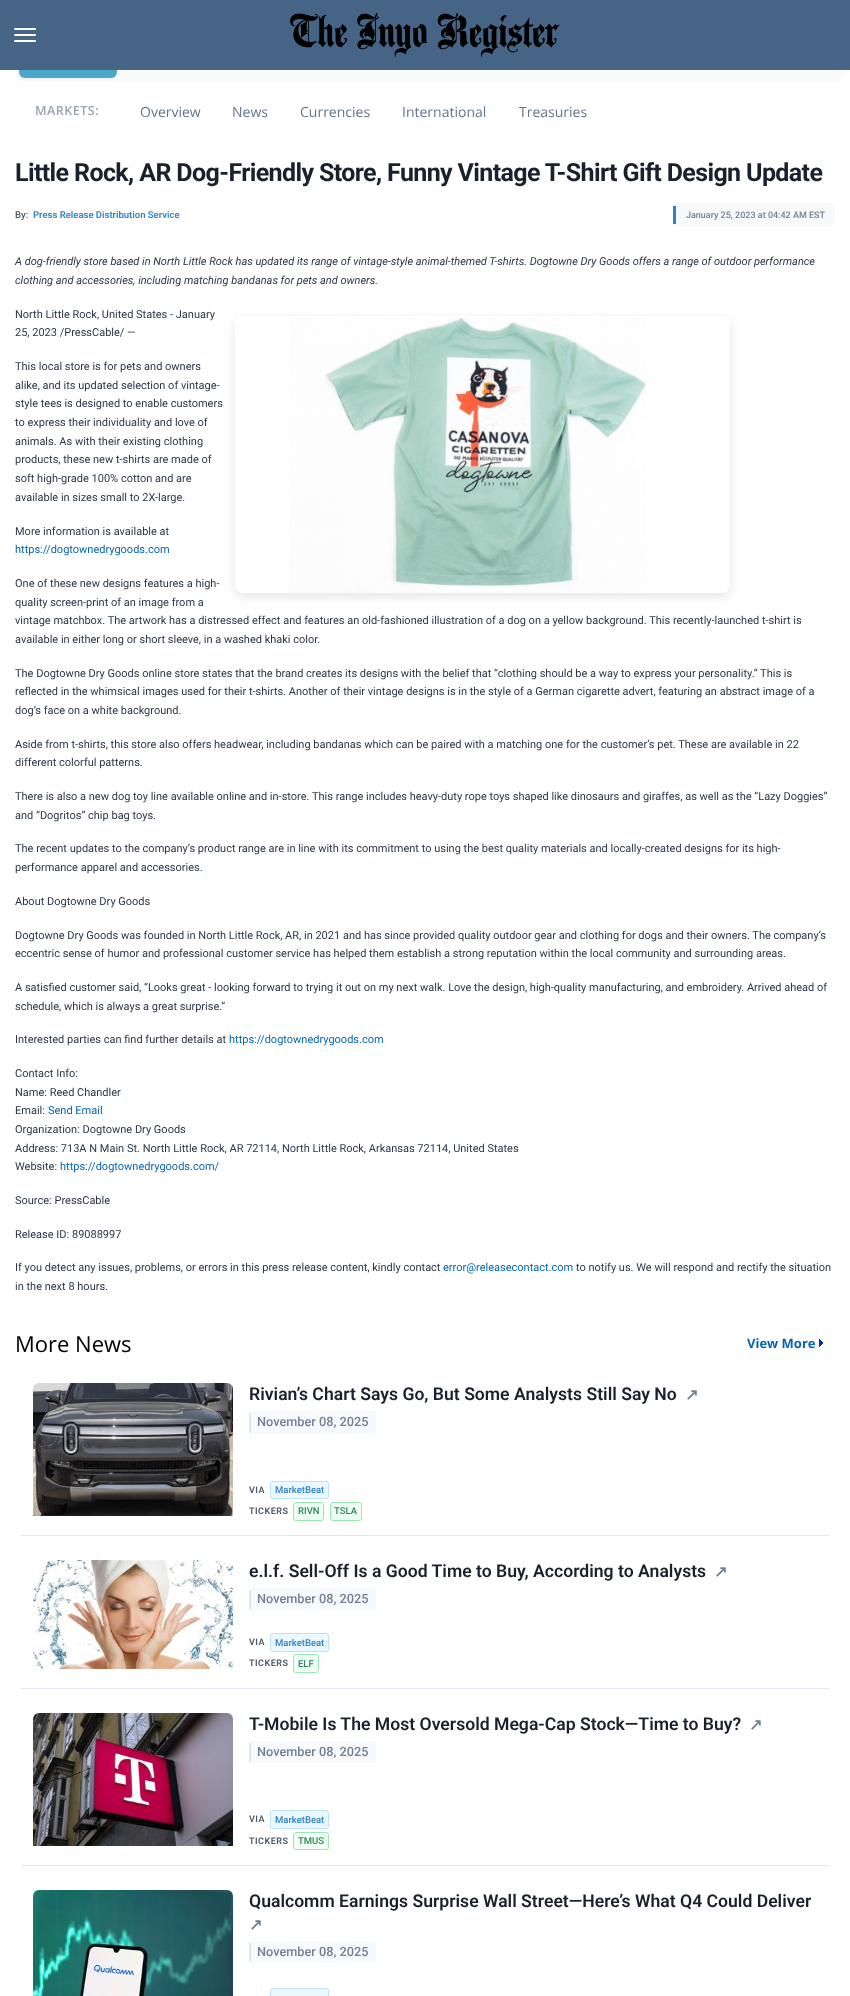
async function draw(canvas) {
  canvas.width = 850;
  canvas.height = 1996;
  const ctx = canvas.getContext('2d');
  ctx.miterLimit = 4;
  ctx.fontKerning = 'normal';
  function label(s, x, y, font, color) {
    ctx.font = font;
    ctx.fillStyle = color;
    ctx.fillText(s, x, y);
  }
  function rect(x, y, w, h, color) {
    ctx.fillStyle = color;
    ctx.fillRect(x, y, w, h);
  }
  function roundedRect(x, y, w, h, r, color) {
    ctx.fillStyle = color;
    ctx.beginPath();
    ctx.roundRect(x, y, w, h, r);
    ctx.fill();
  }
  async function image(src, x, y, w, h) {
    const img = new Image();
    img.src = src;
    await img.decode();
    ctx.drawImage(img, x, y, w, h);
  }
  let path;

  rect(0, 0, 850, 1996, '#fff');
  roundedRect(15, 29, 828, 53, 8, '#f8fafc');
  ctx.fillStyle = '#0000000d';
  ctx.filter = 'blur(1px)';
  ctx.beginPath();
  ctx.roundRect(19, 34, 98, 45, 6);
  ctx.fill();
  ctx.filter = 'none';
  roundedRect(19, 33, 98, 45, 6, '#4ca8c8');
  rect(0, 0, 850, 70, '#466486');
  roundedRect(14, 28, 22, 2, 1, '#fff');
  roundedRect(14, 34, 22, 2, 1, '#fff');
  roundedRect(14, 40, 22, 2, 1, '#fff');
  await image('assets/img1.png', 290, 13, 270, 45);
  ctx.letterSpacing = '0.5px';
  label('MARKETS:', 35, 115, '600 12.5px Open Sans', '#9ca3af');
  ctx.letterSpacing = '0px';
  label('Overview', 140, 117, '14px Open Sans', '#64748b');
  label('News', 232, 117, '14px Open Sans', '#64748b');
  label('Currencies', 300, 117, '14px Open Sans', '#64748b');
  label('International', 402, 117, '14px Open Sans', '#64748b');
  label('Treasuries', 519, 117, '14px Open Sans', '#64748b');
  ctx.letterSpacing = '-0.62px';
  label('Little Rock, AR Dog-Friendly Store, Funny Vintage T-Shirt Gift Design Update', 15, 181, 'bold 25px Roboto', '#1a202c');
  ctx.letterSpacing = '0px';
  label('By:', 15, 218, '500 9.5px Roboto', '#4a5568');
  label('Press Release Distribution Service', 33, 218, '600 9.5px Roboto', '#3182ce');
  roundedRect(673, 203, 162, 24, 6, '#f7fafc');
  rect(673, 206, 3, 18, '#3182ce');
  label('January 25, 2023 at 04:42 AM EST', 686, 218, '500 9px Roboto', '#718096');
  label('A dog-friendly store based in North Little Rock has updated its range of vintage-style animal-themed T-shirts. Dogtowne Dry Goods offers a range of outdoor performance', 15, 265, 'italic 11px Roboto', '#2d3748');
  label('clothing and accessories, including matching bandanas for pets and owners.', 15, 284, 'italic 11px Roboto', '#2d3748');
  label('North Little Rock, United States - January', 15, 318, '11px Roboto', '#2d3748');
  label('25, 2023 /PressCable/ —', 15, 336, '11px Roboto', '#2d3748');
  ctx.save();
  path = new Path2D('M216 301H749V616H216ZM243 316H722C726.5 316 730 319.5 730 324V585C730 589.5 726.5 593 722 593H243C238.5 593 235 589.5 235 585V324C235 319.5 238.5 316 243 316Z');
  ctx.clip(path, 'evenodd');
  ctx.fillStyle = '#0000001a';
  ctx.filter = 'blur(6px)';
  ctx.beginPath();
  ctx.roundRect(235, 320, 495, 277, 8);
  ctx.fill();
  ctx.filter = 'none';
  ctx.restore();
  await image('assets/img2.png', 289, 317, 358, 276);
  label('This local store is for pets and owners', 15, 370, '11px Roboto', '#2d3748');
  label('alike, and its updated selection of vintage-', 15, 389, '11px Roboto', '#2d3748');
  label('style tees is designed to enable customers', 15, 407, '11px Roboto', '#2d3748');
  label('to express their individuality and love of', 15, 426, '11px Roboto', '#2d3748');
  label('animals. As with their existing clothing', 15, 445, '11px Roboto', '#2d3748');
  label('products, these new t-shirts are made of', 15, 463, '11px Roboto', '#2d3748');
  label('soft high-grade 100% cotton and are', 15, 482, '11px Roboto', '#2d3748');
  label('available in sizes small to 2X-large.', 15, 501, '11px Roboto', '#2d3748');
  label('More information is available at', 15, 535, '11px Roboto', '#2d3748');
  label('https://dogtownedrygoods.com', 15, 553, '11px Roboto', '#0466b6');
  label('One of these new designs features a high-', 15, 587, '11px Roboto', '#2d3748');
  label('quality screen-print of an image from a', 15, 606, '11px Roboto', '#2d3748');
  label('vintage matchbox. The artwork has a distressed effect and features an old-fashioned illustration of a dog on a yellow background. This recently-launched t-shirt is', 15, 624, '11px Roboto', '#2d3748');
  label('available in either long or short sleeve, in a washed khaki color.', 15, 643, '11px Roboto', '#2d3748');
  label('The Dogtowne Dry Goods online store states that the brand creates its designs with the belief that “clothing should be a way to express your personality.” This is', 15, 677, '11px Roboto', '#2d3748');
  label('reflected in the whimsical images used for their t-shirts. Another of their vintage designs is in the style of a German cigarette advert, featuring an abstract image of a', 15, 695, '11px Roboto', '#2d3748');
  label('dog’s face on a white background.', 15, 714, '11px Roboto', '#2d3748');
  label('Aside from t-shirts, this store also offers headwear, including bandanas which can be paired with a matching one for the customer’s pet. These are available in 22', 15, 748, '11px Roboto', '#2d3748');
  label('different colorful patterns.', 15, 766, '11px Roboto', '#2d3748');
  label('There is also a new dog toy line available online and in-store. This range includes heavy-duty rope toys shaped like dinosaurs and giraffes, as well as the “Lazy Doggies”', 15, 800, '11px Roboto', '#2d3748');
  label('and “Dogritos” chip bag toys.', 15, 819, '11px Roboto', '#2d3748');
  label('The recent updates to the company’s product range are in line with its commitment to using the best quality materials and locally-created designs for its high-', 15, 852, '11px Roboto', '#2d3748');
  label('performance apparel and accessories.', 15, 871, '11px Roboto', '#2d3748');
  label('About Dogtowne Dry Goods', 15, 905, '11px Roboto', '#2d3748');
  label('Dogtowne Dry Goods was founded in North Little Rock, AR, in 2021 and has since provided quality outdoor gear and clothing for dogs and their owners. The company’s', 15, 939, '11px Roboto', '#2d3748');
  label('eccentric sense of humor and professional customer service has helped them establish a strong reputation within the local community and surrounding areas.', 15, 957, '11px Roboto', '#2d3748');
  label('A satisfied customer said, “Looks great - looking forward to trying it out on my next walk. Love the design, high-quality manufacturing, and embroidery. Arrived ahead of', 15, 991, '11px Roboto', '#2d3748');
  label('schedule, which is always a great surprise.”', 15, 1010, '11px Roboto', '#2d3748');
  label('Interested parties can find further details at', 15, 1043, '11px Roboto', '#2d3748');
  label('https://dogtownedrygoods.com', 229, 1043, '11px Roboto', '#0466b6');
  label('Contact Info:', 15, 1077, '11px Roboto', '#2d3748');
  label('Name: Reed Chandler', 15, 1096, '11px Roboto', '#2d3748');
  label('Email:', 15, 1114, '11px Roboto', '#2d3748');
  label('Send Email', 48, 1114, '11px Roboto', '#0466b6');
  label('Organization: Dogtowne Dry Goods', 15, 1133, '11px Roboto', '#2d3748');
  label('Address: 713A N Main St. North Little Rock, AR 72114, North Little Rock, Arkansas 72114, United States', 15, 1152, '11px Roboto', '#2d3748');
  label('Website:', 15, 1170, '11px Roboto', '#2d3748');
  label('https://dogtownedrygoods.com/', 60, 1170, '11px Roboto', '#0466b6');
  label('Source: PressCable', 15, 1204, '11px Roboto', '#2d3748');
  label('Release ID: 89088997', 15, 1238, '11px Roboto', '#2d3748');
  label('If you detect any issues, problems, or errors in this press release content, kindly contact', 15, 1271, '11px Roboto', '#2d3748');
  label('error@releasecontact.com', 443, 1271, '11px Roboto', '#0466b6');
  label('to notify us. We will respond and rectify the situation', 576, 1271, '11px Roboto', '#2d3748');
  label('in the next 8 hours.', 15, 1290, '11px Roboto', '#2d3748');
  label('More News', 15, 1352, '22px Open Sans', '#000');
  await image('assets/img3.png', 819, 1339, 4, 8);
  label('View More', 747, 1348, 'bold 13px Open Sans', '#0466b6');
  rect(21, 1535, 808, 1, '#e2e8f0');
  await image('assets/img4.png', 33, 1383, 200, 133);
  label('Rivian’s Chart Says Go, But Some Analysts Still Say No', 249, 1400, '600 17.6px Roboto', '#1a202c');
  label('↗', 685, 1400, 'bold 16px DejaVu Sans', '#718096');
  roundedRect(249, 1411, 127, 23, 3, '#f7fafc');
  rect(249, 1413, 2, 20, '#e2e8f0');
  label('November 08, 2025', 257, 1426, '500 12.75px Roboto', '#718096');
  ctx.letterSpacing = '0.5px';
  label('VIA', 249, 1493, '600 9px Roboto', '#4a5568');
  ctx.fillStyle = '#ebf8ff';
  ctx.beginPath();
  ctx.roundRect(270.5, 1481.5, 58, 17, 2.5);
  ctx.fill();
  ctx.strokeStyle = '#bee3f8';
  ctx.stroke();
  ctx.letterSpacing = '0px';
  label('MarketBeat', 275, 1493, '500 9.5px Roboto', '#3182ce');
  ctx.letterSpacing = '0.5px';
  label('TICKERS', 249, 1514, '600 9px Roboto', '#4a5568');
  ctx.fillStyle = '#f0fff4';
  ctx.beginPath();
  ctx.roundRect(293.5, 1502.5, 30, 18, 2.5);
  ctx.fill();
  ctx.strokeStyle = '#9ae6b4';
  ctx.stroke();
  ctx.letterSpacing = '0px';
  label('RIVN', 298, 1514, '500 9.5px Roboto', '#2f855a');
  ctx.fillStyle = '#f0fff4';
  ctx.beginPath();
  ctx.roundRect(330.5, 1502.5, 31, 18, 2.5);
  ctx.fill();
  ctx.stroke();
  label('TSLA', 334, 1514, '500 9.5px Roboto', '#2f855a');
  rect(21, 1688, 808, 1, '#e2e8f0');
  await image('assets/img5.png', 33, 1560, 200, 109);
  label('e.l.f. Sell-Off Is a Good Time to Buy, According to Analysts', 249, 1577, '600 17.6px Roboto', '#1a202c');
  label('↗', 714, 1577, 'bold 16px DejaVu Sans', '#718096');
  roundedRect(249, 1588, 127, 23, 3, '#f7fafc');
  rect(249, 1590, 2, 20, '#e2e8f0');
  label('November 08, 2025', 257, 1603, '500 12.75px Roboto', '#718096');
  ctx.letterSpacing = '0.5px';
  label('VIA', 249, 1645, '600 9px Roboto', '#4a5568');
  ctx.fillStyle = '#ebf8ff';
  ctx.beginPath();
  ctx.roundRect(270.5, 1633.5, 58, 18, 2.5);
  ctx.fill();
  ctx.strokeStyle = '#bee3f8';
  ctx.stroke();
  ctx.letterSpacing = '0px';
  label('MarketBeat', 275, 1646, '500 9.5px Roboto', '#3182ce');
  ctx.letterSpacing = '0.5px';
  label('TICKERS', 249, 1666, '600 9px Roboto', '#4a5568');
  ctx.fillStyle = '#f0fff4';
  ctx.beginPath();
  ctx.roundRect(293.5, 1654.5, 25, 18, 2.5);
  ctx.fill();
  ctx.strokeStyle = '#9ae6b4';
  ctx.stroke();
  ctx.letterSpacing = '0px';
  label('ELF', 298, 1667, '500 9.5px Roboto', '#2f855a');
  rect(21, 1865, 808, 1, '#e2e8f0');
  await image('assets/img6.png', 33, 1713, 200, 133);
  label('T-Mobile Is The Most Oversold Mega-Cap Stock—Time to Buy?', 249, 1730, '600 17.6px Roboto', '#1a202c');
  label('↗', 749, 1730, 'bold 16px DejaVu Sans', '#718096');
  roundedRect(249, 1741, 127, 22, 3, '#f7fafc');
  rect(249, 1743, 2, 19, '#e2e8f0');
  label('November 08, 2025', 257, 1756, '500 12.75px Roboto', '#718096');
  ctx.letterSpacing = '0.5px';
  label('VIA', 249, 1822, '600 9px Roboto', '#4a5568');
  ctx.fillStyle = '#ebf8ff';
  ctx.beginPath();
  ctx.roundRect(270.5, 1810.5, 58, 18, 2.5);
  ctx.fill();
  ctx.strokeStyle = '#bee3f8';
  ctx.stroke();
  ctx.letterSpacing = '0px';
  label('MarketBeat', 275, 1823, '500 9.5px Roboto', '#3182ce');
  ctx.letterSpacing = '0.5px';
  label('TICKERS', 249, 1844, '600 9px Roboto', '#4a5568');
  ctx.fillStyle = '#f0fff4';
  ctx.beginPath();
  ctx.roundRect(293.5, 1832.5, 35, 17, 2.5);
  ctx.fill();
  ctx.strokeStyle = '#9ae6b4';
  ctx.stroke();
  ctx.letterSpacing = '0px';
  label('TMUS', 298, 1844, '500 9.5px Roboto', '#2f855a');
  await image('assets/img7.png', 33, 1890, 200, 106);
  label('Qualcomm Earnings Surprise Wall Street—Here’s What Q4 Could Deliver', 249, 1907, '600 17.6px Roboto', '#1a202c');
  label('↗', 249, 1930, 'bold 16px DejaVu Sans', '#718096');
  roundedRect(249, 1941, 127, 22, 3, '#f7fafc');
  rect(249, 1943, 2, 19, '#e2e8f0');
  label('November 08, 2025', 257, 1956, '500 12.75px Roboto', '#718096');
  ctx.fillStyle = '#ebf8ff';
  ctx.beginPath();
  ctx.roundRect(270.5, 1988.5, 58, 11, 2.5);
  ctx.fill();
  ctx.strokeStyle = '#bee3f8';
  ctx.stroke();
}

draw(document.querySelector('canvas'));
